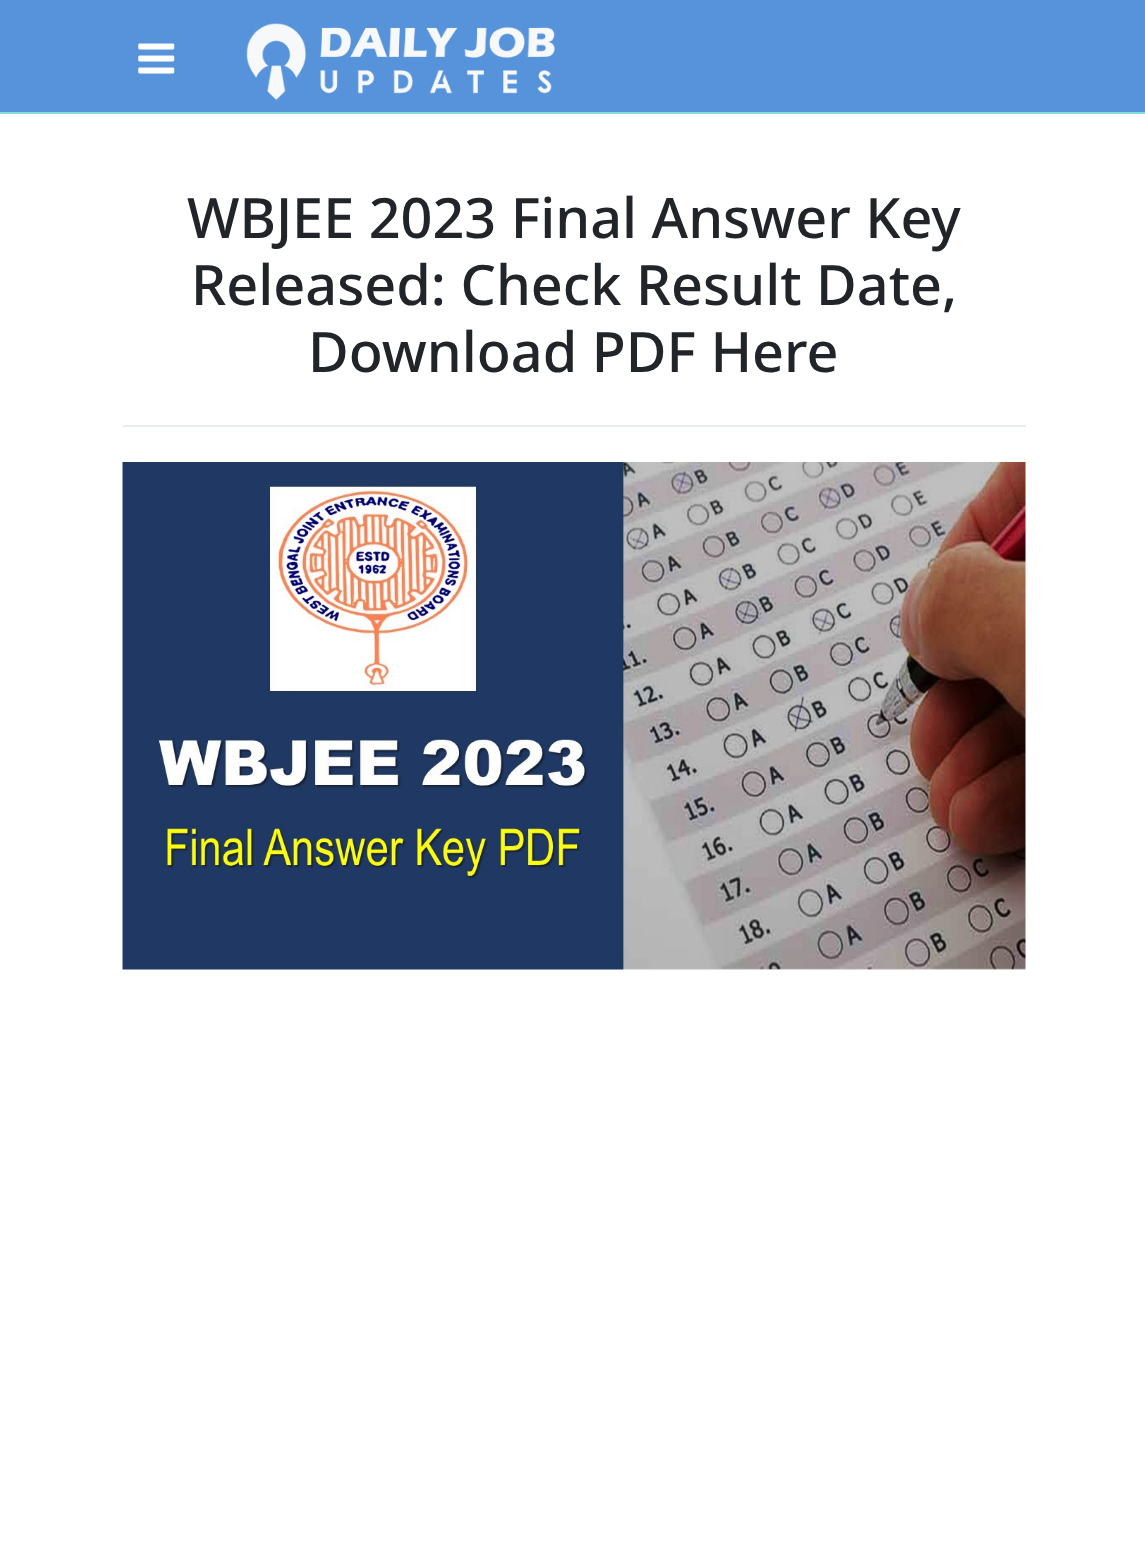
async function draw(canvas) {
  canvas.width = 1145;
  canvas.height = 1554;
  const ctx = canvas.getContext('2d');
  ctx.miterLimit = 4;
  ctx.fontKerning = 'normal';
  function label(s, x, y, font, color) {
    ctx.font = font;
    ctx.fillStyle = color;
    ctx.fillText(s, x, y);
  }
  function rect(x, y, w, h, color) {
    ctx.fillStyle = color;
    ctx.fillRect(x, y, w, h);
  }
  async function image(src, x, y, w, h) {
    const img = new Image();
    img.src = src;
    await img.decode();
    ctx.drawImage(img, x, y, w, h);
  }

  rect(0, 0, 1145, 1554, '#fff');
  rect(0, 0, 1145, 112, '#5693db');
  rect(0, 112, 1145, 2, '#80dde3');
  await image('assets/img1.png', 138, 43, 37, 31);
  await image('assets/img2.png', 246, 23, 309, 77);
  rect(123, 425, 903, 2, '#e8ecec');
  label('WBJEE 2023 Final Answer Key', 187, 238, '500 55.75px Noto Sans', '#212529');
  label('Released: Check Result Date,', 191, 305, '500 55.75px Noto Sans', '#212529');
  label('Download PDF Here', 308, 372, '500 55.75px Noto Sans', '#212529');
  await image('assets/img3.png', 122, 462, 904, 508);
}

draw(document.querySelector('canvas'));
